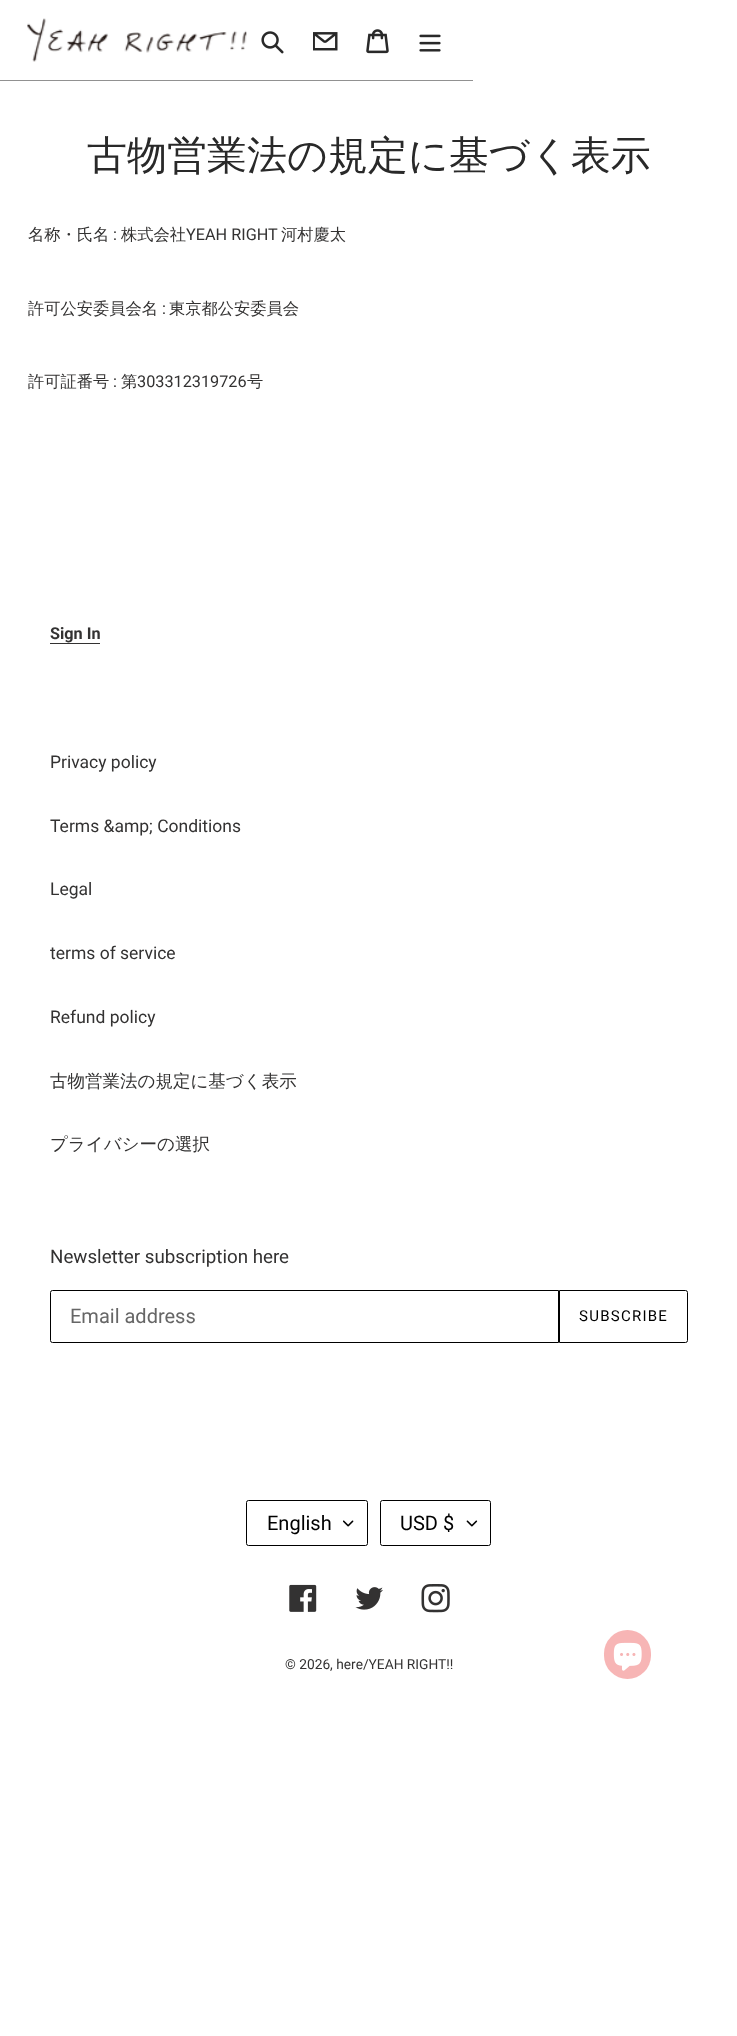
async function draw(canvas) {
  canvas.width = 737;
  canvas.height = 2036;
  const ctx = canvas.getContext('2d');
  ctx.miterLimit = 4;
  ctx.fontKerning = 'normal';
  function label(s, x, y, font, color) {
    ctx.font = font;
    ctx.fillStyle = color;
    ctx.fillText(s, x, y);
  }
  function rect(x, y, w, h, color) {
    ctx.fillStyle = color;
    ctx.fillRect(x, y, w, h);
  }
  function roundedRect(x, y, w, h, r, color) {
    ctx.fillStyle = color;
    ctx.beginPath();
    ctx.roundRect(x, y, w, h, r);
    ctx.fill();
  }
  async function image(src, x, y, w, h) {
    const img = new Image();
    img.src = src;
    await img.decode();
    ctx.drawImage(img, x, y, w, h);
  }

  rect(0, 0, 737, 2036, '#fff');
  rect(0, 80, 473, 1, '#919191');
  await image('assets/img1.png', 27, 18, 220, 44);
  await image('assets/img2.png', 261, 31, 23, 23);
  await image('assets/img3.png', 313, 32, 25, 19);
  await image('assets/img4.png', 366, 29, 23, 25);
  await image('assets/img5.png', 419, 34, 22, 18);
  label('古物営業法の規定に基づく表示', 87, 169, '500 40px WenQuanYi Zen Hei', '#292929');
  label('名称・氏名', 28, 240, '500 16.25px WenQuanYi Zen Hei', '#333232');
  label(':', 113, 240, '16.25px Roboto', '#333232');
  label('株式会社', 121, 240, '500 16.25px WenQuanYi Zen Hei', '#333232');
  label('YEAH RIGHT', 186, 240, '16.25px Roboto', '#333232');
  label('河村慶太', 281, 240, '500 16.25px WenQuanYi Zen Hei', '#333232');
  label('許可公安委員会名', 28, 314, '500 16.25px WenQuanYi Zen Hei', '#333232');
  label(':', 162, 314, '16.25px Roboto', '#333232');
  label('東京都公安委員会', 169, 314, '500 16.25px WenQuanYi Zen Hei', '#333232');
  label('許可証番号', 28, 387, '500 16.25px WenQuanYi Zen Hei', '#333232');
  label(':', 113, 387, '16.25px Roboto', '#333232');
  label('第', 121, 387, '500 16.25px WenQuanYi Zen Hei', '#333232');
  label('303312319726', 137, 387, '16.25px Roboto', '#333232');
  label('号', 247, 387, '500 16.25px WenQuanYi Zen Hei', '#333232');
  label('Sign In', 50, 639, 'bold 16.25px Roboto', '#333232');
  rect(50, 643, 50, 1, '#333232');
  label('Privacy policy', 50, 768, '17.5px Roboto', '#333232');
  label('Terms &amp; Conditions', 50, 832, '17.5px Roboto', '#333232');
  label('Legal', 50, 895, '17.5px Roboto', '#333232');
  label('terms of service', 50, 959, '17.5px Roboto', '#333232');
  label('Refund policy', 50, 1023, '17.5px Roboto', '#333232');
  label('古物営業法の規定に基づく表示', 50, 1087, '500 17.5px WenQuanYi Zen Hei', '#333232');
  label('プライバシーの選択', 50, 1150, '500 17.5px WenQuanYi Zen Hei', '#333232');
  label('Newsletter subscription here', 50, 1263, '18.75px Roboto', '#333232');
  ctx.beginPath();
  ctx.roundRect(50.5, 1290.5, 508, 52, [2, 0, 0, 2]);
  ctx.strokeStyle = '#000';
  ctx.stroke();
  label('Email address', 70, 1323, '20px Roboto', '#666');
  ctx.beginPath();
  ctx.roundRect(559.5, 1290.5, 128, 52, [0, 2, 2, 0]);
  ctx.stroke();
  ctx.letterSpacing = '1.25px';
  label('SUBSCRIBE', 579, 1321, '15px Roboto', '#000');
  await image('assets/img6.png', 343, 1520, 11, 7);
  ctx.beginPath();
  ctx.roundRect(246.5, 1500.5, 121, 45, 2);
  ctx.stroke();
  ctx.letterSpacing = '0px';
  label('English', 267, 1530, '20px Roboto', '#000');
  await image('assets/img7.png', 466, 1520, 12, 7);
  ctx.beginPath();
  ctx.roundRect(380.5, 1500.5, 110, 45, 2);
  ctx.stroke();
  label('USD $', 400, 1530, '20px Roboto', '#000');
  await image('assets/img8.png', 289, 1584, 28, 28);
  await image('assets/img9.png', 355, 1587, 28, 23);
  await image('assets/img10.png', 421, 1584, 29, 29);
  label('© 2026, here/YEAH RIGHT!!', 285, 1669, '13.75px Roboto', '#333232');
  roundedRect(604, 1630, 47, 49, 23.5, '#f7b5b5');
  await image('assets/img11.png', 613, 1642, 29, 29);
}

draw(document.querySelector('canvas'));
